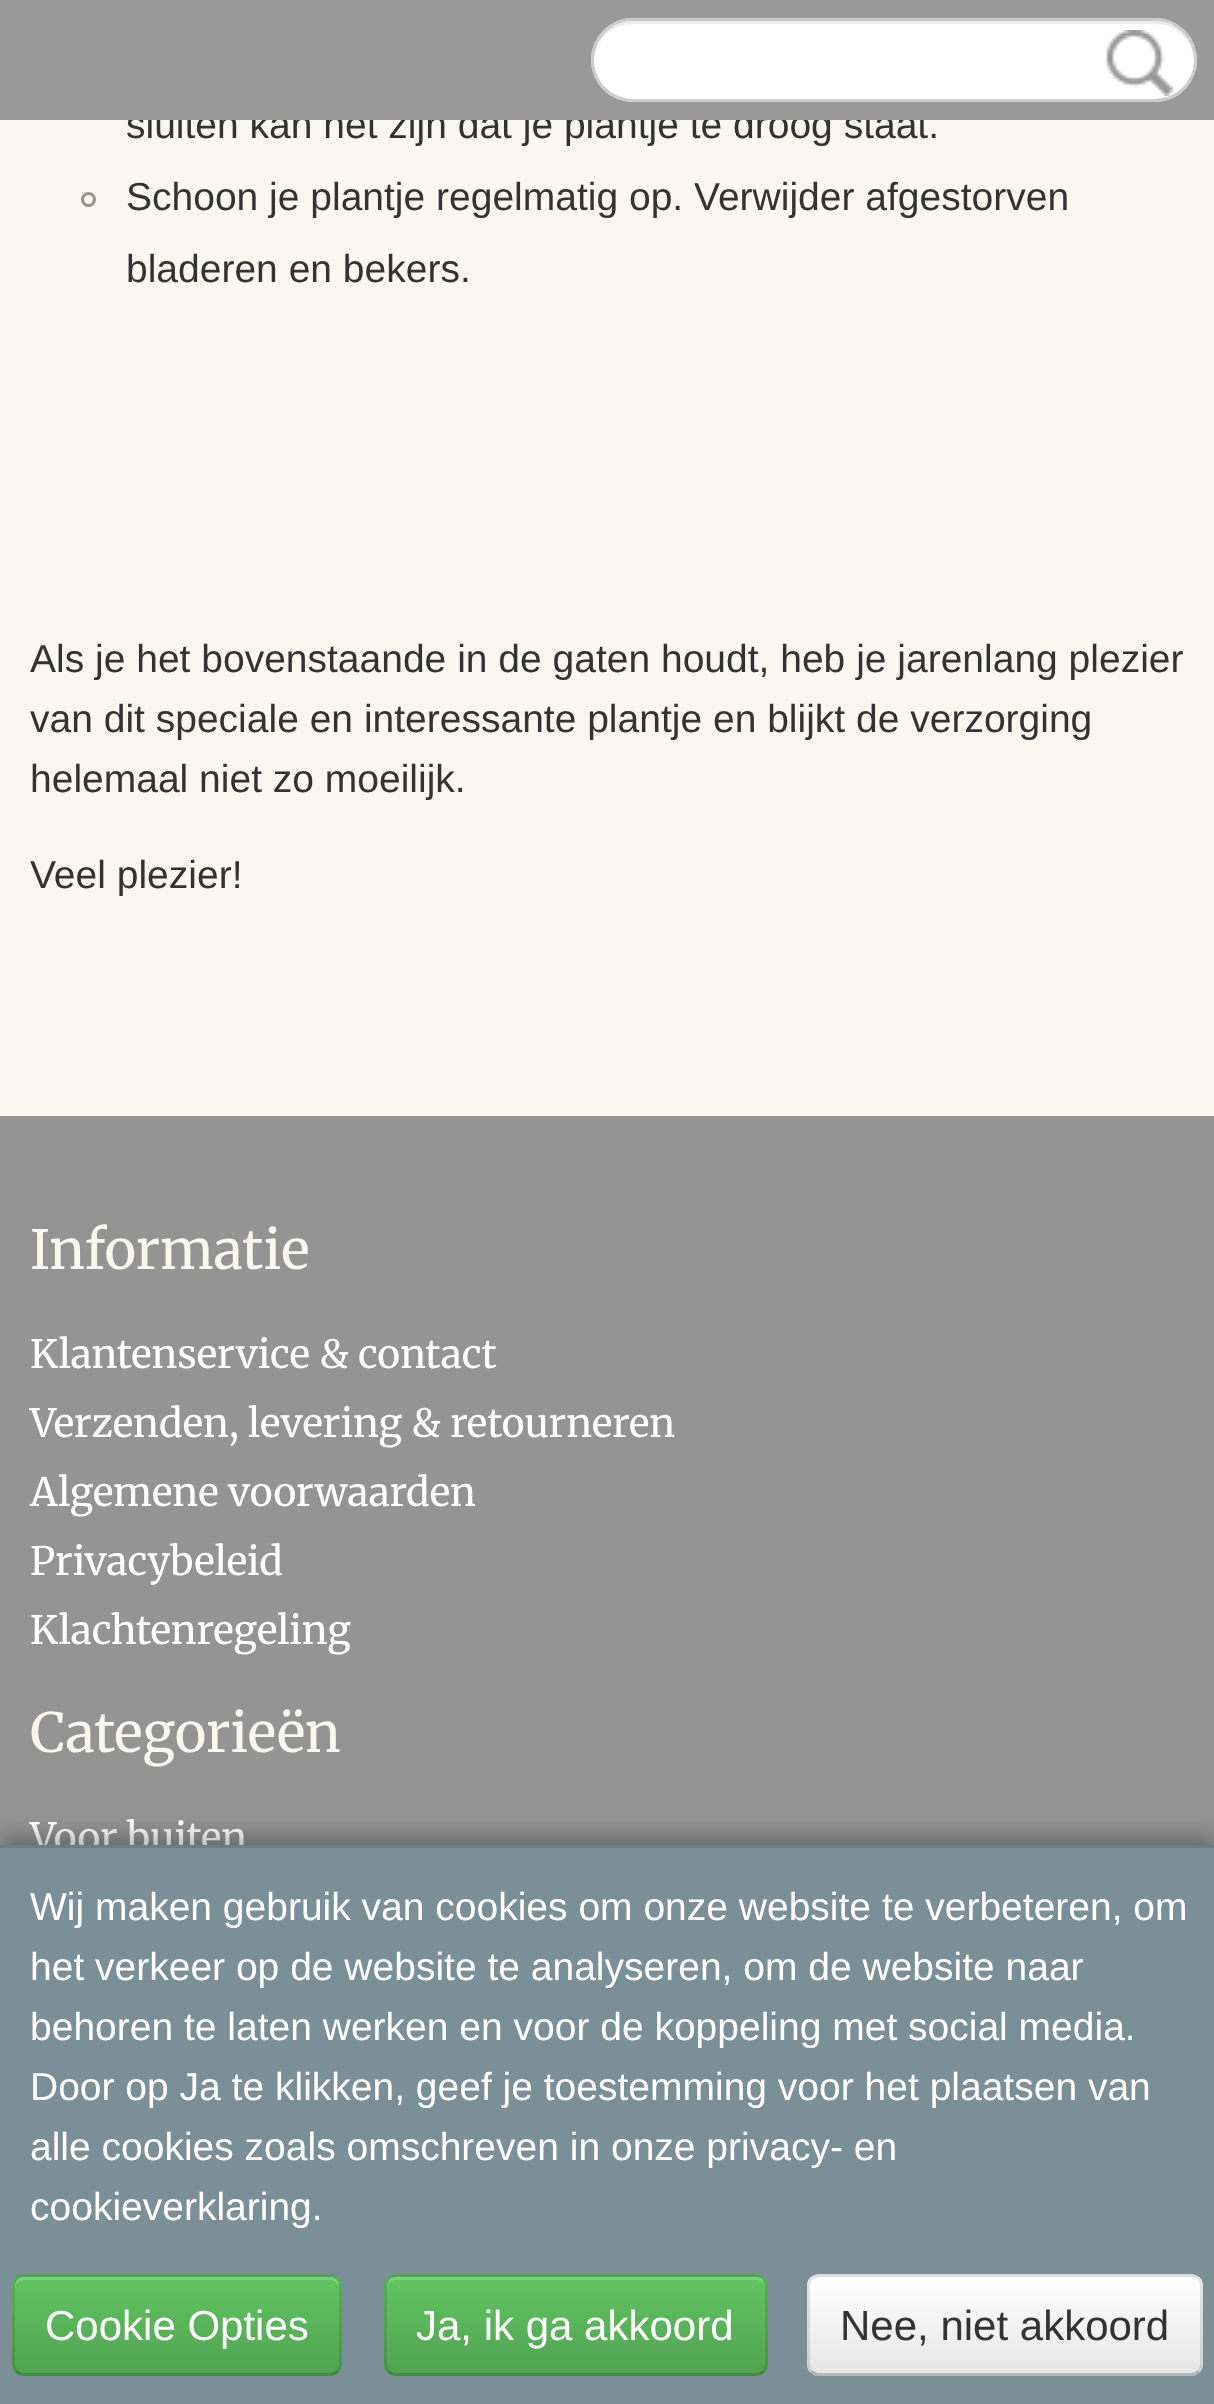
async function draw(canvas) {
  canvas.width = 1214;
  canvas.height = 2404;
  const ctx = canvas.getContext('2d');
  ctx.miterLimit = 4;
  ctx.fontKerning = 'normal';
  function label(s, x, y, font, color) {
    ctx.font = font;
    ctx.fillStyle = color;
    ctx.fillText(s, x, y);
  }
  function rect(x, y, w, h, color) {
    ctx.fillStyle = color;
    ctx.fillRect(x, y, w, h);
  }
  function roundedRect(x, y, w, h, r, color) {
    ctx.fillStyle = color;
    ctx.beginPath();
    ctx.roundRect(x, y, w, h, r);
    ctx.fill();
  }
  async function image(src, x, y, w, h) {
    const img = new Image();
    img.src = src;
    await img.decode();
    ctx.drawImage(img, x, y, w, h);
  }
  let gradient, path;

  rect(0, 0, 1214, 2404, '#f9f7f0');
  label('sluiten kan het zijn dat je plantje te droog staat.', 126, 138, '39px Liberation Sans', '#333');
  rect(0, 0, 1214, 120, '#999');
  roundedRect(591, 18, 606, 84, 42, '#fff');
  ctx.fillStyle = '#ececec';
  path = new Path2D('M633 24H1155C1176 24 1193 40 1194 61C1195 40 1177 21 1155 21H633C611 21 593 40 594 61C595 40 612 24 633 24Z');
  ctx.fill(path);
  ctx.beginPath();
  ctx.roundRect(592.5, 19.5, 603, 81, 40.5);
  ctx.strokeStyle = '#ccc';
  ctx.lineWidth = 3;
  ctx.stroke();
  await image('assets/img1.png', 1106, 30, 67, 66);
  ctx.beginPath();
  ctx.arc(88.5, 199.5, 6, 0, 2 * Math.PI);
  ctx.strokeStyle = '#969589';
  ctx.stroke();
  label('Schoon je plantje regelmatig op. Verwijder afgestorven', 126, 210, '39px Liberation Sans', '#333');
  label('bladeren en bekers.', 126, 282, '39px Liberation Sans', '#333');
  label('Als je het bovenstaande in de gaten houdt, heb je jarenlang plezier', 30, 672, '39px Liberation Sans', '#333');
  label('van dit speciale en interessante plantje en blijkt de verzorging', 30, 732, '39px Liberation Sans', '#333');
  label('helemaal niet zo moeilijk.', 30, 792, '39px Liberation Sans', '#333');
  label('Veel plezier!', 30, 888, '39px Liberation Sans', '#333');
  rect(0, 1116, 1214, 729, '#949494');
  label('Informatie', 30, 1269, '54px Merriweather', '#f9f7f0');
  label('Klantenservice & contact', 30, 1368, '39px Merriweather', '#fff');
  label('Verzenden, levering & retourneren', 30, 1437, '39px Merriweather', '#fff');
  label('Algemene voorwaarden', 30, 1506, '39px Merriweather', '#fff');
  label('Privacybeleid', 30, 1575, '39px Merriweather', '#fff');
  label('Klachtenregeling', 30, 1644, '39px Merriweather', '#fff');
  label('Categorieën', 30, 1752, '54px Merriweather', '#f9f7f0');
  label('Voor buiten', 30, 1851, '39px Merriweather', '#fff');
  ctx.fillStyle = '#0000004d';
  ctx.filter = 'blur(10.5px)';
  ctx.beginPath();
  ctx.rect(0, 1836, 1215, 561);
  ctx.fill();
  ctx.filter = 'none';
  rect(0, 1848, 1214, 556, '#7a8f98');
  rect(0, 1845, 1214, 3, '#697e87');
  label('Wij maken gebruik van cookies om onze website te verbeteren, om', 30, 1920, '39px Liberation Sans', '#fff');
  label('het verkeer op de website te analyseren, om de website naar', 30, 1980, '39px Liberation Sans', '#fff');
  label('behoren te laten werken en voor de koppeling met social media.', 30, 2040, '39px Liberation Sans', '#fff');
  label('Door op Ja te klikken, geef je toestemming voor het plaatsen van', 30, 2100, '39px Liberation Sans', '#fff');
  label('alle cookies zoals omschreven in onze privacy- en', 30, 2160, '39px Liberation Sans', '#fff');
  label('cookieverklaring.', 30, 2220, '39px Liberation Sans', '#fff');
  roundedRect(12, 2274, 330, 102, 12, '#5bb75b');
  ctx.save();
  ctx.beginPath();
  ctx.roundRect(12, 2274, 330, 102, 12);
  ctx.clip();
  gradient = ctx.createLinearGradient(177, 2277, 177, 2373);
  gradient.addColorStop(0, '#62c462');
  gradient.addColorStop(1, '#51a351');
  ctx.fillStyle = gradient;
  ctx.fillRect(12, 2277, 330, 96);
  ctx.restore();
  ctx.fillStyle = '#ffffff33';
  path = new Path2D('M24 2280H330C335 2280 339 2284 339 2289V2286C339 2281 335 2277 330 2277H24C19 2277 15 2281 15 2286V2289C15 2284 19 2280 24 2280Z');
  ctx.fill(path);
  path = new Path2D('M337.5 2371.5C335.5 2373.5 333 2374.5 330 2374.5H24C21 2374.5 18.5 2373.5 16.5 2371.5');
  ctx.strokeStyle = '#00000040';
  ctx.stroke(path);
  path = new Path2D('M16.5 2371.5C14.5 2369.5 13.5 2367 13.5 2364V2286C13.5 2283 14.5 2280.5 16.5 2278.5C18.5 2276.5 21 2275.5 24 2275.5H330C333 2275.5 335.5 2276.5 337.5 2278.5C339.5 2280.5 340.5 2283 340.5 2286V2364C340.5 2367 339.5 2369.5 337.5 2371.5');
  ctx.strokeStyle = '#0000001a';
  ctx.stroke(path);
  label('Cookie Opties', 45, 2340, '42px Liberation Sans', '#fff');
  roundedRect(384, 2274, 384, 102, 12, '#5bb75b');
  ctx.save();
  ctx.beginPath();
  ctx.roundRect(384, 2274, 384, 102, 12);
  ctx.clip();
  gradient = ctx.createLinearGradient(576, 2277, 576, 2373);
  gradient.addColorStop(0, '#62c462');
  gradient.addColorStop(1, '#51a351');
  ctx.fillStyle = gradient;
  ctx.fillRect(384, 2277, 384, 96);
  ctx.restore();
  ctx.fillStyle = '#ffffff33';
  path = new Path2D('M396 2280H756C761 2280 765 2284 765 2289C765 2284 764 2278 758 2277H396C389 2277 387 2283 387 2289C387 2284 391 2280 396 2280Z');
  ctx.fill(path);
  path = new Path2D('M763.5 2371.5C761.5 2373.5 759 2374.5 756 2374.5H396C393 2374.5 390.5 2373.5 388.5 2371.5');
  ctx.strokeStyle = '#00000040';
  ctx.stroke(path);
  path = new Path2D('M388.5 2371.5C386.5 2369.5 385.5 2367 385.5 2364V2286C385.5 2283 386.5 2280.5 388.5 2278.5C390.5 2276.5 393 2275.5 396 2275.5H756C759 2275.5 761.5 2276.5 763.5 2278.5C765.5 2280.5 766.5 2283 766.5 2286V2364C766.5 2367 765.5 2369.5 763.5 2371.5');
  ctx.strokeStyle = '#0000001a';
  ctx.stroke(path);
  label('Ja, ik ga akkoord', 416, 2340, '42px Liberation Sans', '#fff');
  roundedRect(807, 2274, 396, 102, 12, '#f5f5f5');
  ctx.save();
  ctx.beginPath();
  ctx.roundRect(807, 2274, 396, 102, 12);
  ctx.clip();
  gradient = ctx.createLinearGradient(1005, 2277, 1005, 2373);
  gradient.addColorStop(0, '#fff');
  gradient.addColorStop(1, '#e6e6e6');
  ctx.fillStyle = gradient;
  ctx.fillRect(807, 2277, 396, 96);
  ctx.restore();
  path = new Path2D('M1198.5 2371.5C1196.5 2373.5 1194 2374.5 1191 2374.5H819C816 2374.5 813.5 2373.5 811.5 2371.5');
  ctx.strokeStyle = '#00000040';
  ctx.stroke(path);
  path = new Path2D('M811.5 2371.5C809.5 2369.5 808.5 2367 808.5 2364V2286C808.5 2283 809.5 2280.5 811.5 2278.5C813.5 2276.5 816 2275.5 819 2275.5H1191C1194 2275.5 1196.5 2276.5 1198.5 2278.5C1200.5 2280.5 1201.5 2283 1201.5 2286V2364C1201.5 2367 1200.5 2369.5 1198.5 2371.5');
  ctx.strokeStyle = '#0000001a';
  ctx.stroke(path);
  label('Nee, niet akkoord', 840, 2340, '42px Liberation Sans', '#333');
}

draw(document.querySelector('canvas'));
